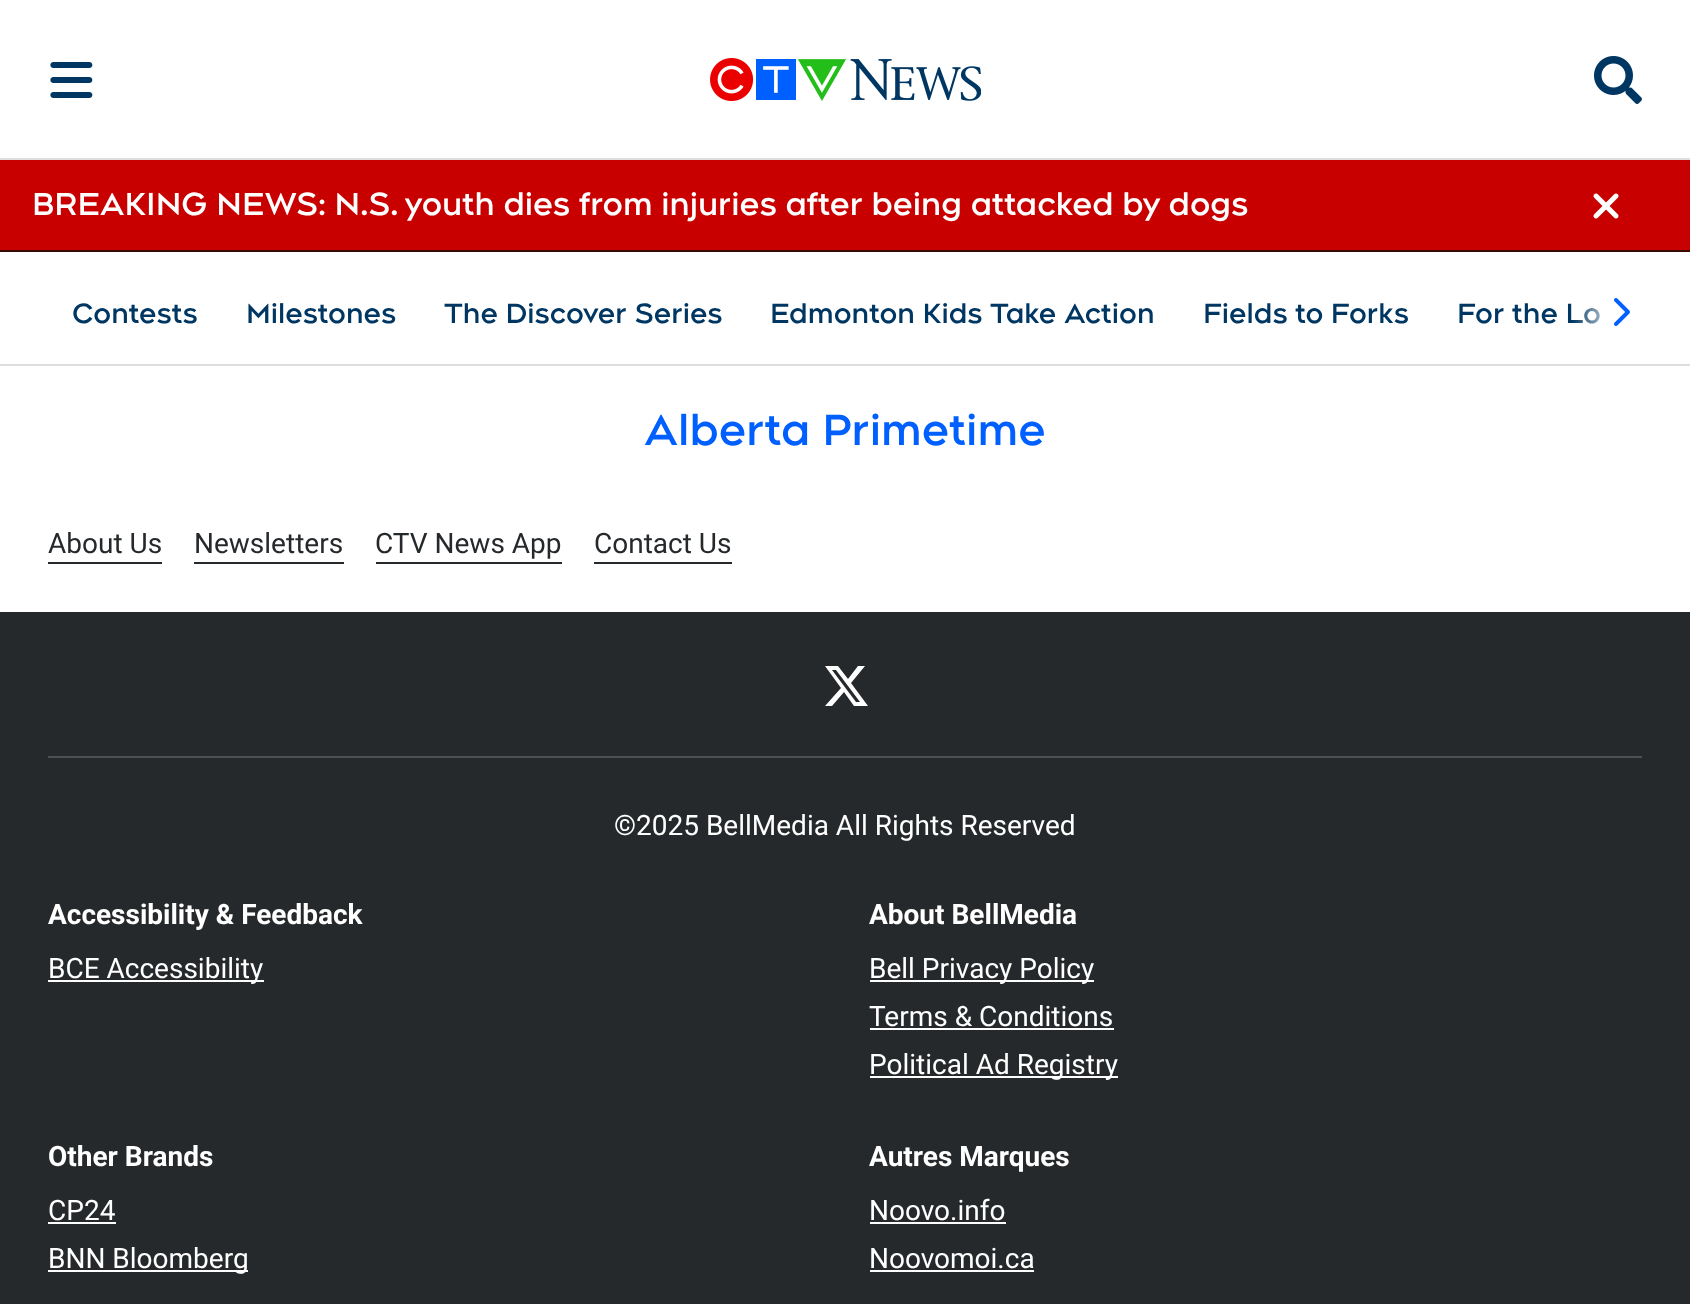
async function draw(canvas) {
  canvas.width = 1690;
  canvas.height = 1304;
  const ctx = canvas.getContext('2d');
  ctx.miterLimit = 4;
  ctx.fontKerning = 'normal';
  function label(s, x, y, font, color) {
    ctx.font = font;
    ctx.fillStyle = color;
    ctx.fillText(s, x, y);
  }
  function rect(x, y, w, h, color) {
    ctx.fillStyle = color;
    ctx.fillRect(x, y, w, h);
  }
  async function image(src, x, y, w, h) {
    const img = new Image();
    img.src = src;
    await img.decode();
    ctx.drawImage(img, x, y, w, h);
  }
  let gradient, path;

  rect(0, 0, 1690, 1304, '#26292b');
  rect(0, 0, 1690, 158, '#fff');
  rect(0, 158, 1690, 2, '#ddd');
  await image('assets/img1.png', 50, 62, 43, 36);
  await image('assets/img2.png', 710, 58, 271, 43);
  await image('assets/img3.png', 1594, 56, 48, 48);
  rect(0, 160, 1690, 90, '#c80000');
  rect(0, 250, 1690, 2, '#370a00');
  label('BREAKING NEWS: N.S. youth dies from injuries after being attacked by dogs', 32, 215, 'bold 32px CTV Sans', '#fff');
  await image('assets/img4.png', 1593, 193, 26, 26);
  rect(0, 252, 1690, 112, '#fff');
  label('Contests', 72, 323, 'bold 28px CTV Sans', '#003662');
  label('Milestones', 246, 323, 'bold 28px CTV Sans', '#003662');
  label('The Discover Series', 444, 323, 'bold 28px CTV Sans', '#003662');
  label('Edmonton Kids Take Action', 770, 323, 'bold 28px CTV Sans', '#003662');
  label('Fields to Forks', 1203, 323, 'bold 28px CTV Sans', '#003662');
  label('For the Lo', 1457, 323, 'bold 28px CTV Sans', '#003662');
  ctx.save();
  ctx.beginPath();
  ctx.rect(24, 284, 1642, 50);
  ctx.clip();
  gradient = ctx.createLinearGradient(1668, 309, 1572, 309);
  gradient.addColorStop(0.5, '#fff');
  gradient.addColorStop(1, '#ffffff00');
  ctx.fillStyle = gradient;
  ctx.beginPath();
  ctx.roundRect(1572, 284, 96, 50, 8);
  ctx.fill();
  ctx.restore();
  await image('assets/img5.png', 1614, 298, 16, 28);
  rect(0, 364, 1690, 2, '#ddd');
  rect(0, 366, 1690, 246, '#fff');
  label('Alberta Primetime', 644, 445, 'bold 44px CTV Sans', '#005fff');
  label('About Us', 48, 553, '28px Roboto', '#26292b');
  rect(48, 562, 114, 2, '#26292b');
  label('Newsletters', 194, 553, '28px Roboto', '#26292b');
  rect(194, 562, 150, 2, '#26292b');
  label('CTV News App', 375, 553, '28px Roboto', '#26292b');
  rect(376, 562, 186, 2, '#26292b');
  label('Contact Us', 594, 553, '28px Roboto', '#26292b');
  rect(594, 562, 138, 2, '#26292b');
  rect(48, 756, 1594, 2, '#4f4f4f');
  ctx.fillStyle = '#fff';
  path = new Path2D('M858 666H865L851 683L868 706H854L844 692L832 706H825L841 688L825 666H838L848 679ZM856 702H860L836 670H832Z');
  ctx.fill(path);
  label('©2025 BellMedia All Rights Reserved', 614, 835, '28px Roboto', '#fff');
  label('Accessibility & Feedback', 48, 924, 'bold 28px Roboto', '#fff');
  rect(48, 980, 216, 2, '#fff');
  label('BCE Accessibility', 48, 978, '28px Roboto', '#fff');
  label('About BellMedia', 869, 924, 'bold 28px Roboto', '#fff');
  rect(870, 980, 224, 2, '#fff');
  label('Bell Privacy Policy', 869, 978, '28px Roboto', '#fff');
  label('Terms & Conditions', 869, 1026, '28px Roboto', '#fff');
  rect(870, 1028, 244, 2, '#fff');
  rect(870, 1076, 248, 2, '#fff');
  label('Political Ad Registry', 869, 1074, '28px Roboto', '#fff');
  label('Other Brands', 48, 1166, 'bold 28px Roboto', '#fff');
  label('CP24', 48, 1220, '28px Roboto', '#fff');
  rect(48, 1222, 68, 2, '#fff');
  rect(48, 1270, 200, 2, '#fff');
  label('BNN Bloomberg', 48, 1268, '28px Roboto', '#fff');
  label('Autres Marques', 869, 1166, 'bold 28px Roboto', '#fff');
  label('Noovo.info', 869, 1220, '28px Roboto', '#fff');
  rect(870, 1222, 136, 2, '#fff');
  label('Noovomoi.ca', 869, 1268, '28px Roboto', '#fff');
  rect(870, 1270, 164, 2, '#fff');
}

draw(document.querySelector('canvas'));
